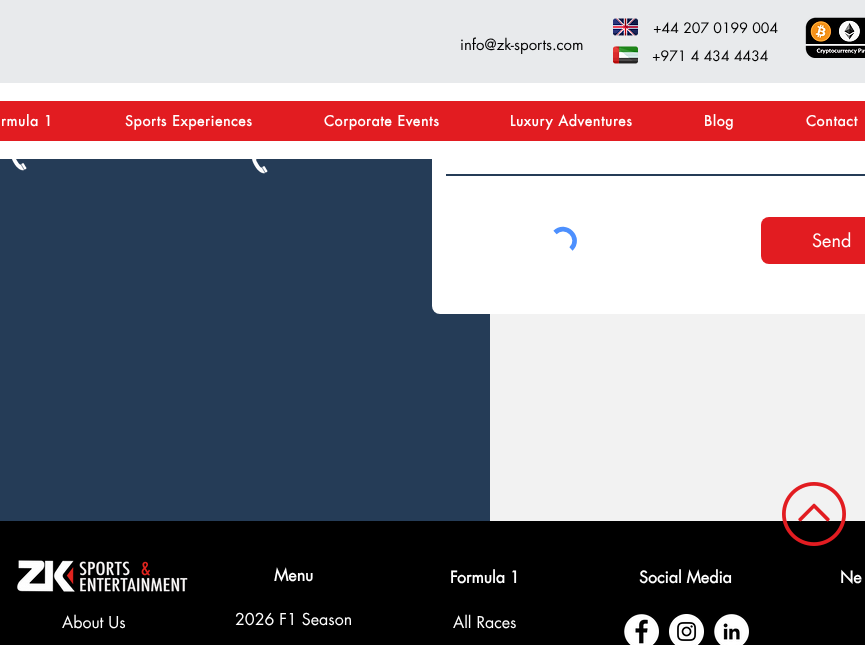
async function draw(canvas) {
  canvas.width = 865;
  canvas.height = 645;
  const ctx = canvas.getContext('2d');
  ctx.miterLimit = 4;
  ctx.fontKerning = 'normal';
  function label(s, x, y, font, color) {
    ctx.font = font;
    ctx.fillStyle = color;
    ctx.fillText(s, x, y);
  }
  function rect(x, y, w, h, color) {
    ctx.fillStyle = color;
    ctx.fillRect(x, y, w, h);
  }
  function roundedRect(x, y, w, h, r, color) {
    ctx.fillStyle = color;
    ctx.beginPath();
    ctx.roundRect(x, y, w, h, r);
    ctx.fill();
  }
  async function image(src, x, y, w, h) {
    const img = new Image();
    img.src = src;
    await img.decode();
    ctx.drawImage(img, x, y, w, h);
  }
  let path;

  rect(0, 0, 865, 645, '#000');
  rect(0, 159, 490, 362, '#253c57');
  roundedRect(432, -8, 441, 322, 8, '#fff');
  rect(0, 0, 865, 83, '#e8eaec');
  await image('assets/img1.png', 613, 18, 25, 18);
  label('+44 207 0199 004', 653, 33, '14px futura', '#000');
  label('info@zk-sports.com', 460, 50, '15px futura', '#000');
  await image('assets/img2.png', 613, 46, 25, 18);
  label('+971 4 434 4434', 652, 61, '14px futura', '#000');
  await image('assets/img3.png', 805, 17, 60, 41);
  rect(0, 83, 432, 76, '#fff');
  rect(0, 101, 865, 40, '#e21c21');
  ctx.letterSpacing = '0.75px';
  label('rmula 1', 1, 126, 'bold 14px futura', '#fff');
  label('Sports Experiences', 125, 126, 'bold 14px futura', '#fff');
  label('Corporate Events', 324, 126, 'bold 14px futura', '#fff');
  label('Luxury Adventures', 510, 126, 'bold 14px futura', '#fff');
  label('Blog', 704, 126, 'bold 14px futura', '#fff');
  label('Contact', 806, 126, 'bold 14px futura', '#fff');
  await image('assets/img4.png', 11, 159, 16, 12);
  await image('assets/img5.png', 251, 159, 17, 15);
  rect(446, 174, 419, 2, '#253c57');
  path = new Path2D('M555 232.5C565.5 222 582 238 571 249');
  ctx.strokeStyle = '#4d90fe';
  ctx.lineWidth = 4.6;
  ctx.stroke(path);
  roundedRect(761, 217, 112, 47, 8, '#e21c21');
  ctx.letterSpacing = '0px';
  label('Send', 812, 247, '18px futura', '#fff');
  rect(490, 314, 375, 207, '#f2f2f2');
  label('Menu', 274, 581, 'bold 16px futura', '#fff');
  label('2026 F1 Season', 235, 625, '16px futura', '#fff');
  label('Formula 1', 450, 583, 'bold 16px futura', '#fff');
  label('All Races', 453, 628, '16px futura', '#fff');
  label('Social Media', 639, 583, 'bold 16px futura', '#fff');
  await image('assets/img6.png', 624, 614, 35, 31);
  await image('assets/img7.png', 669, 614, 35, 31);
  await image('assets/img8.png', 714, 614, 35, 31);
  label('Ne', 840, 583, 'bold 16px futura', '#fff');
  await image('assets/img9.png', 17, 560, 171, 32);
  label('About Us', 62, 628, '16px futura', '#fff');
  await image('assets/img10.png', 782, 482, 64, 64);
}

draw(document.querySelector('canvas'));
